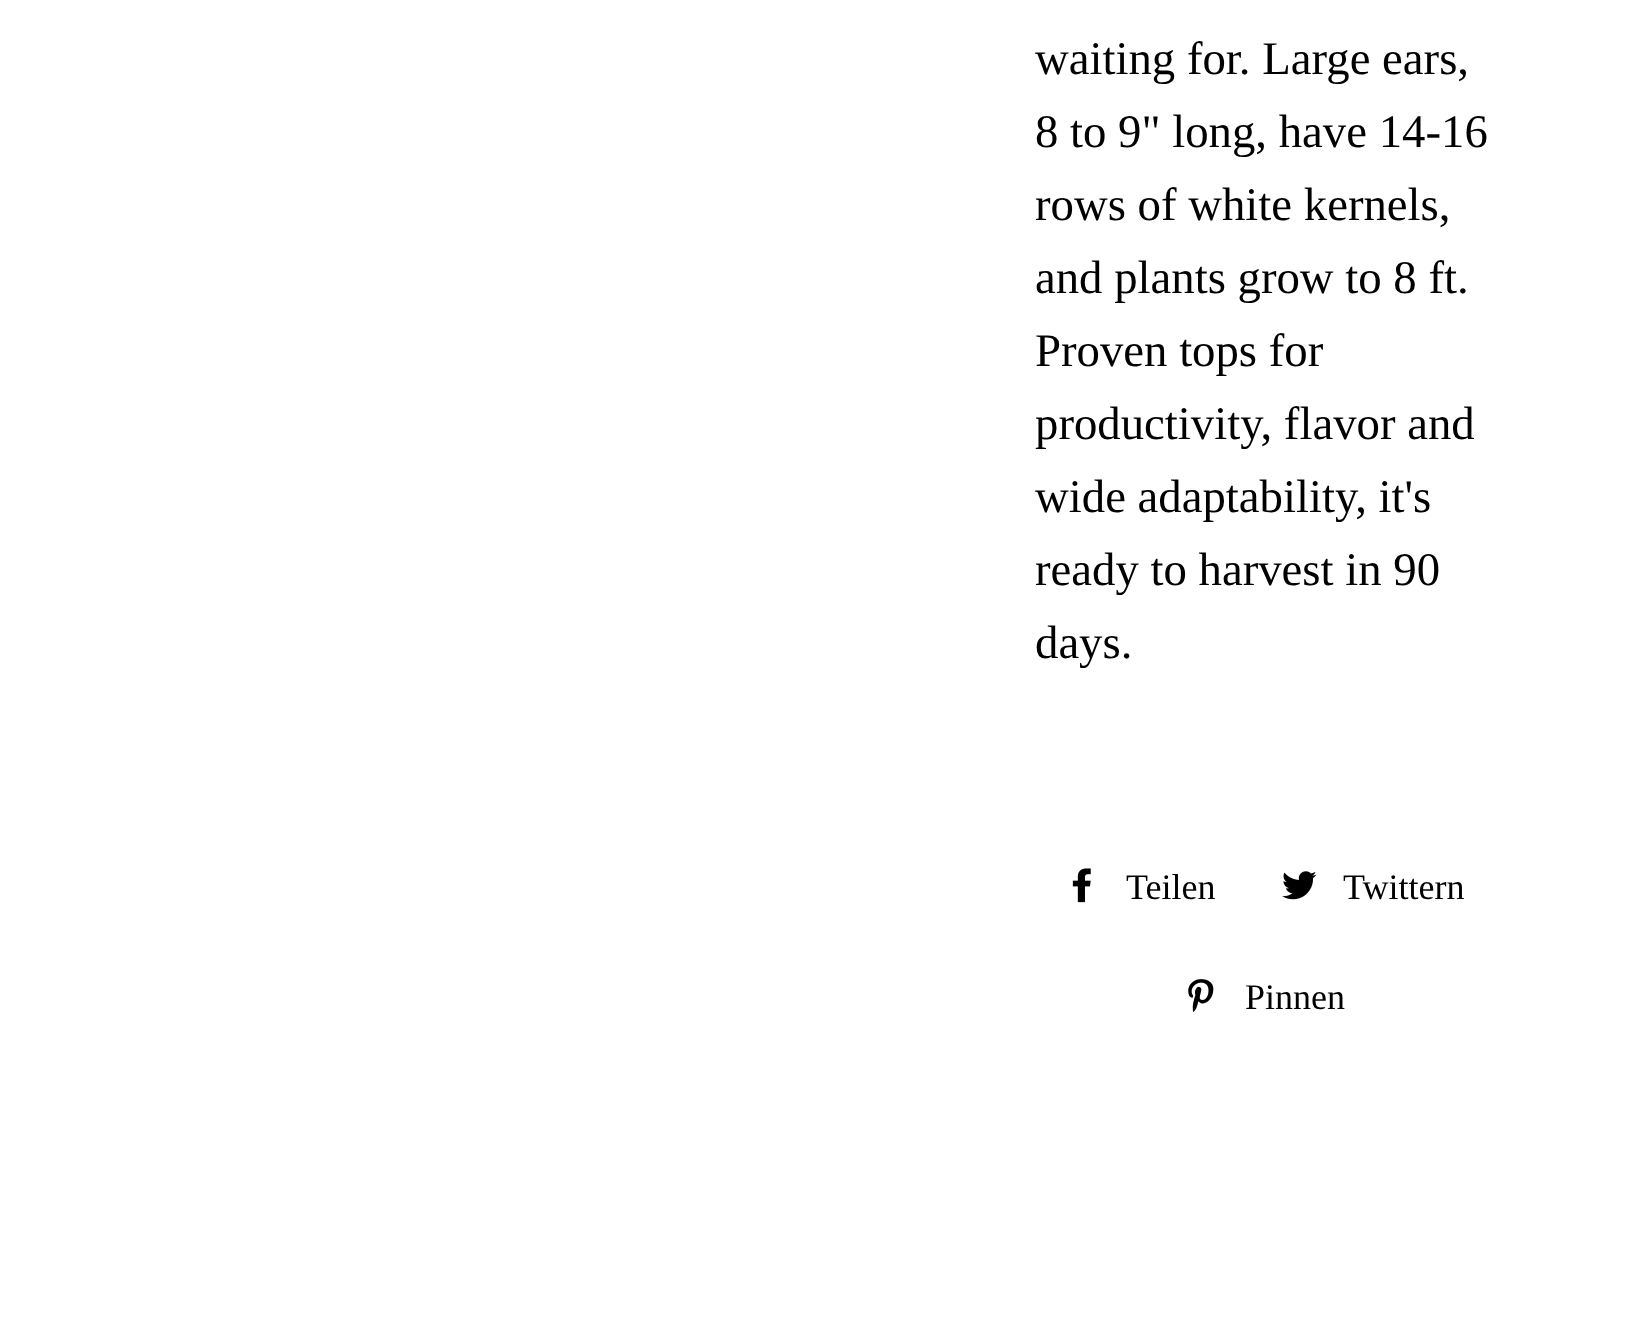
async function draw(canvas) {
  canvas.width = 1643;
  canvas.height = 1322;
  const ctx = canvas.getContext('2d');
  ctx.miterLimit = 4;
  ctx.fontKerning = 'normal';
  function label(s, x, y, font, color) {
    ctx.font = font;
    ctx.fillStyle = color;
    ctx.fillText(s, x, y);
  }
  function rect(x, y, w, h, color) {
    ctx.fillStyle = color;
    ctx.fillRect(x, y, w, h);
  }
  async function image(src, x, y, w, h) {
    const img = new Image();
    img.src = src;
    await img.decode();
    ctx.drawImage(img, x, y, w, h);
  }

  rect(0, 0, 1643, 1322, '#fff');
  label('waiting for. Large ears,', 1035, 74, '46.75px Liberation Serif', '#000');
  label('8 to 9" long, have 14-16', 1035, 147, '46.75px Liberation Serif', '#000');
  label('rows of white kernels,', 1035, 220, '46.75px Liberation Serif', '#000');
  label('and plants grow to 8 ft.', 1035, 293, '46.75px Liberation Serif', '#000');
  label('Proven tops for', 1035, 366, '46.75px Liberation Serif', '#000');
  label('productivity, flavor and', 1035, 439, '46.75px Liberation Serif', '#000');
  label('wide adaptability, it\'s', 1035, 512, '46.75px Liberation Serif', '#000');
  label('ready to harvest in 90', 1035, 585, '46.75px Liberation Serif', '#000');
  label('days.', 1035, 658, '46.75px Liberation Serif', '#000');
  await image('assets/img1.png', 1072, 868, 19, 35);
  label('Teilen', 1126, 899, '36px Liberation Serif', '#000');
  await image('assets/img2.png', 1282, 871, 35, 29);
  label('Twittern', 1343, 899, '36px Liberation Serif', '#000');
  await image('assets/img3.png', 1188, 979, 26, 33);
  label('Pinnen', 1245, 1009, '36px Liberation Serif', '#000');
}

draw(document.querySelector('canvas'));
